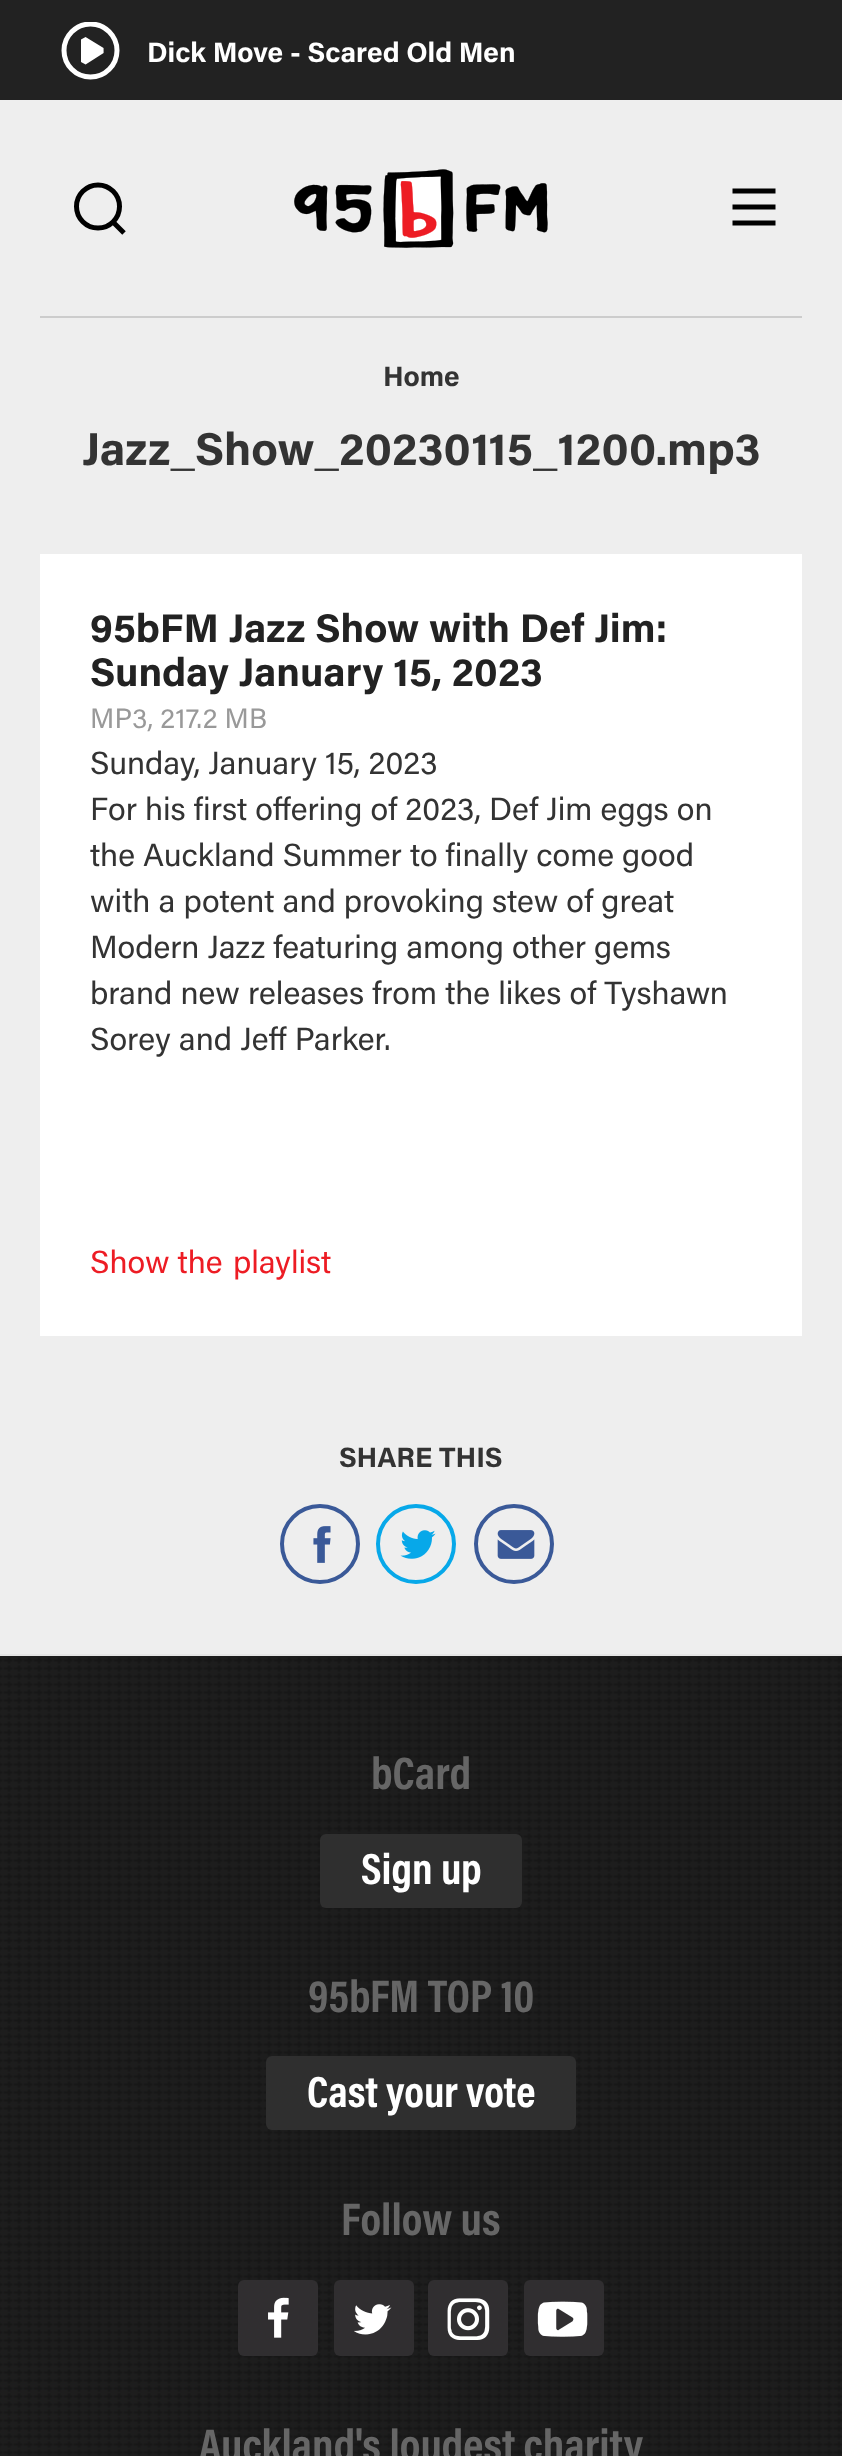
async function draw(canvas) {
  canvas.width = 842;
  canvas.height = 2456;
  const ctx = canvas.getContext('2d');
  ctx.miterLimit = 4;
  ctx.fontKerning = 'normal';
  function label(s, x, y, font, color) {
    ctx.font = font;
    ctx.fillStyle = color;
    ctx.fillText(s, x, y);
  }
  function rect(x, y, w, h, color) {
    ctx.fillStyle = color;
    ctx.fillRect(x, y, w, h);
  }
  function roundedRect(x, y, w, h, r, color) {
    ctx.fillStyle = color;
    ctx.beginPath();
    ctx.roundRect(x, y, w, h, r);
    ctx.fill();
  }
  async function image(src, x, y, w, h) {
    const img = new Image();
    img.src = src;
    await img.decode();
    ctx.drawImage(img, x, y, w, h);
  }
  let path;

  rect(0, 0, 842, 2456, '#222');
  ctx.fillStyle = '#fff';
  path = new Path2D('M84 39.5V62L102 50.5Z');
  ctx.fill(path);
  ctx.strokeStyle = '#fff';
  ctx.lineWidth = 6;
  ctx.lineCap = 'round';
  ctx.lineJoin = 'bevel';
  ctx.stroke(path);
  ctx.save();
  ctx.beginPath();
  ctx.rect(60, 22, 60, 58);
  ctx.clip();
  ctx.beginPath();
  ctx.arc(90.5, 50.5, 26.5, 0, 2 * Math.PI);
  ctx.lineWidth = 5;
  ctx.stroke();
  ctx.restore();
  label('Dick Move - Scared Old Men', 147, 62, 'bold 28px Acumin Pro', '#fff');
  rect(0, 100, 842, 1554, '#eee');
  ctx.beginPath();
  ctx.arc(98, 206.5, 21.5, 0, 2 * Math.PI);
  ctx.strokeStyle = '#000';
  ctx.lineWidth = 5;
  ctx.stroke();
  path = new Path2D('M113 222L124 233');
  ctx.lineCap = 'butt';
  ctx.lineJoin = 'miter';
  ctx.stroke(path);
  await image('assets/img1.png', 294, 169, 254, 79);
  path = new Path2D('M732.5 207H775.5M732.5 191H775.5M732.5 223H775.5');
  ctx.stroke(path);
  rect(40, 316, 762, 2, '#ccc');
  label('Home', 383, 386, 'bold 28px Acumin Pro', '#333');
  label('Jazz_Show_20230115_1200.mp3', 82, 465, 'bold 46px Acumin Pro', '#333');
  rect(40, 554, 762, 782, '#fff');
  label('95bFM Jazz Show with Def Jim:', 90, 642, 'bold 40px Acumin Pro', '#222');
  label('Sunday January 15, 2023', 90, 686, 'bold 40px Acumin Pro', '#222');
  label('MP3, 217.2 MB', 90, 728, '28px Acumin Pro', '#999');
  label('Sunday, January 15, 2023', 90, 774, '32px Acumin Pro', '#333');
  label('For his first offering of 2023, Def Jim eggs on', 90, 820, '32px Acumin Pro', '#333');
  label('the Auckland Summer to finally come good', 90, 866, '32px Acumin Pro', '#333');
  label('with a potent and provoking stew of great', 90, 912, '32px Acumin Pro', '#333');
  label('Modern Jazz featuring among other gems', 90, 958, '32px Acumin Pro', '#333');
  label('brand new releases from the likes of Tyshawn', 90, 1004, '32px Acumin Pro', '#333');
  label('Sorey and Jeff Parker.', 90, 1050, '32px Acumin Pro', '#333');
  label('Show the', 90, 1273, '32px Acumin Pro', '#ed1c24');
  label('playlist', 233, 1273, '32px Acumin Pro', '#ed1c24');
  label('SHARE THIS', 339, 1467, 'bold 28px Acumin Pro', '#333');
  ctx.beginPath();
  ctx.arc(320, 1544, 38, 0, 2 * Math.PI);
  ctx.strokeStyle = '#3a5998';
  ctx.lineWidth = 4;
  ctx.stroke();
  await image('assets/img2.png', 313, 1526, 18, 37);
  ctx.beginPath();
  ctx.arc(416, 1544, 38, 0, 2 * Math.PI);
  ctx.strokeStyle = '#07a8e9';
  ctx.stroke();
  await image('assets/img3.png', 400, 1530, 36, 29);
  ctx.beginPath();
  ctx.arc(514, 1544, 38, 0, 2 * Math.PI);
  ctx.strokeStyle = '#3a5998';
  ctx.stroke();
  await image('assets/img4.png', 497, 1530, 38, 29);
  await image('assets/img5.png', 0, 1656, 842, 800);
  rect(0, 1654, 842, 2, '#e5e5e5');
  label('bCard', 371, 1789, 'bold 46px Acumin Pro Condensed', '#666');
  roundedRect(320, 1834, 202, 74, 6, '#2f2f2f');
  label('Sign up', 361, 1884, 'bold 44px Acumin Pro Condensed', '#fff');
  label('95bFM TOP 10', 308, 2012, 'bold 46px Acumin Pro Condensed', '#666');
  roundedRect(266, 2056, 310, 74, 6, '#2f2f2f');
  label('Cast your vote', 307, 2107, 'bold 44px Acumin Pro Condensed', '#fff');
  label('Follow us', 341, 2235, 'bold 46px Acumin Pro Condensed', '#666');
  roundedRect(238, 2280, 80, 76, 6, '#302e30');
  await image('assets/img6.png', 268, 2297, 21, 41);
  roundedRect(334, 2280, 80, 76, 6, '#302e30');
  await image('assets/img7.png', 354, 2304, 38, 31);
  roundedRect(428, 2280, 80, 76, 6, '#302e30');
  await image('assets/img8.png', 447, 2298, 43, 42);
  roundedRect(524, 2280, 80, 76, 6, '#302e30');
  await image('assets/img9.png', 537, 2301, 51, 36);
  label('Auckland\'s loudest charity', 199, 2461, 'bold 46px Acumin Pro Condensed', '#666');
}

draw(document.querySelector('canvas'));
